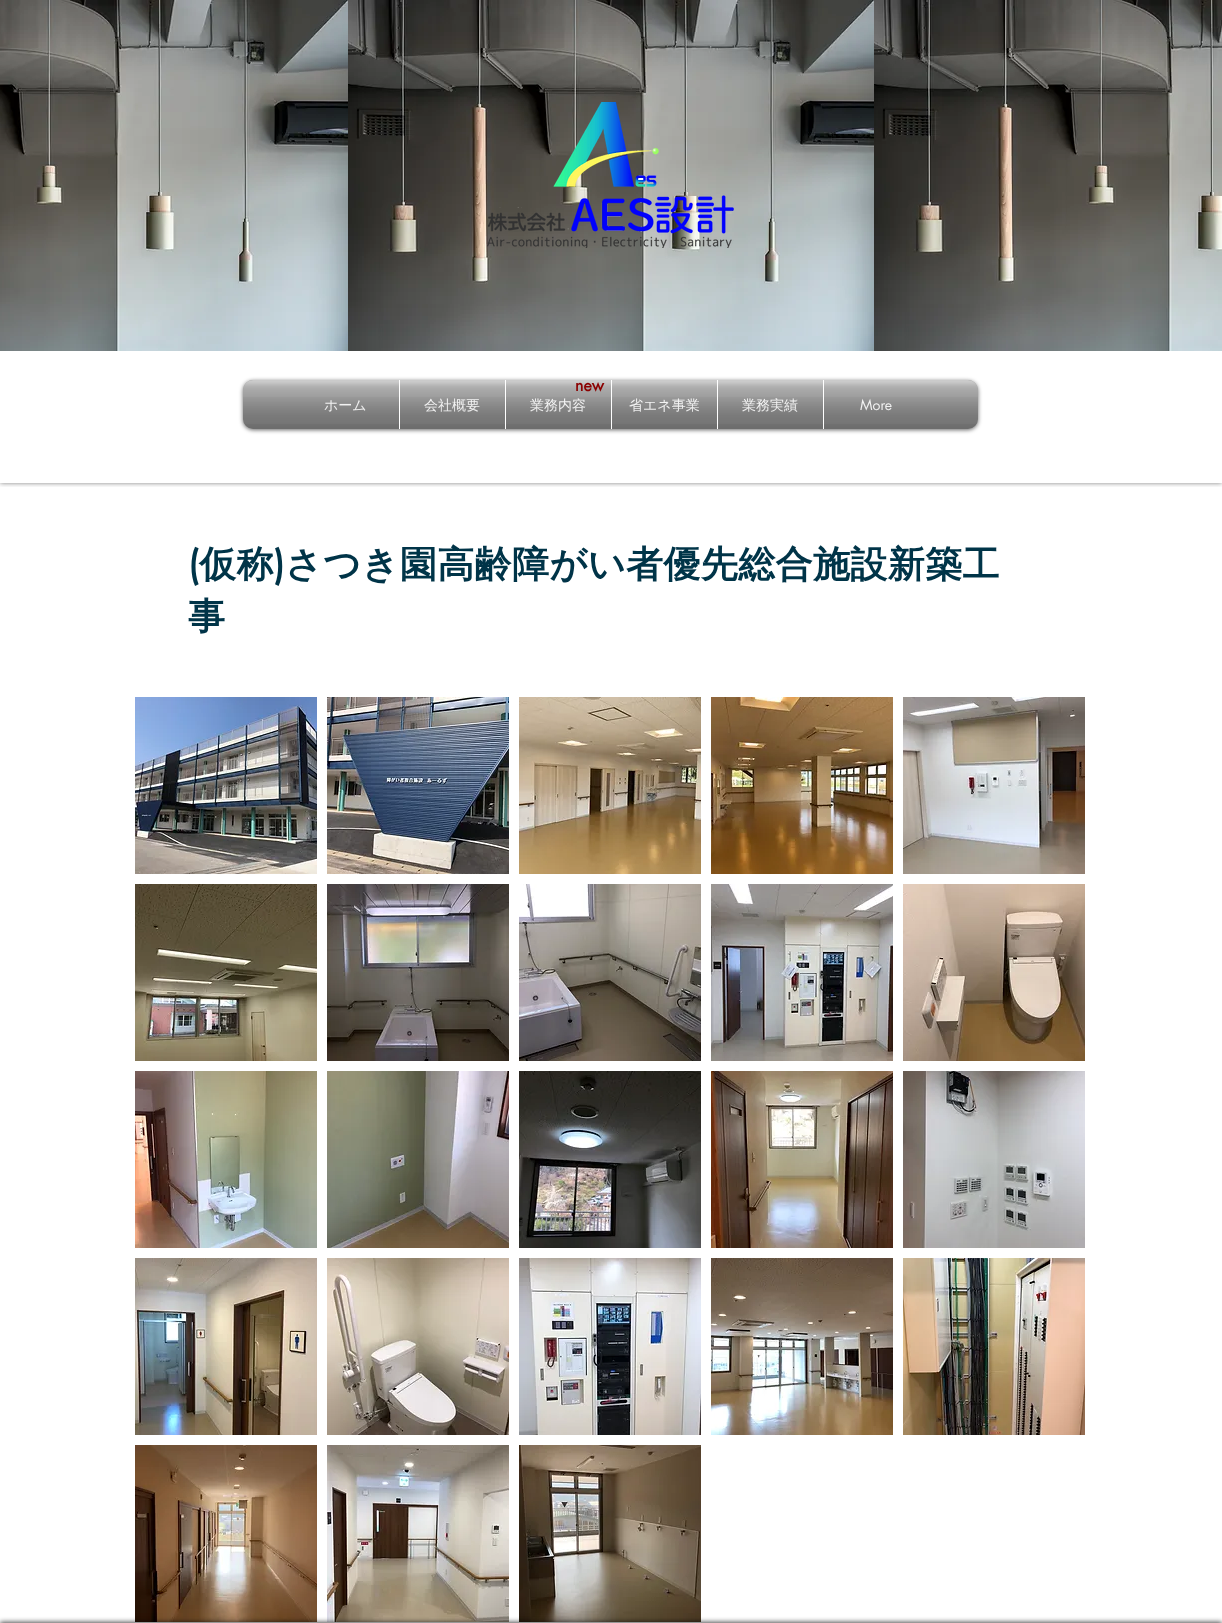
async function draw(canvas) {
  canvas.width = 1222;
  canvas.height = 1623;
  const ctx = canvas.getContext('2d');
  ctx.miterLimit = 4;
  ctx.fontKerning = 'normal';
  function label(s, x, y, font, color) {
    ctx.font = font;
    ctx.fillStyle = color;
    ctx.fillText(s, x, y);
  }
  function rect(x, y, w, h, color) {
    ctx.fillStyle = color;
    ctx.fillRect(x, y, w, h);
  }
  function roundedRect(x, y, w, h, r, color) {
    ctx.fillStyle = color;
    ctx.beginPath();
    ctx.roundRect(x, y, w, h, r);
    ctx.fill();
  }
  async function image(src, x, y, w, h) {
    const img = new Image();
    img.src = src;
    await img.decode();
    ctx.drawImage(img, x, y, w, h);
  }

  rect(0, 0, 1222, 1623, '#fff');
  ctx.save();
  ctx.beginPath();
  ctx.rect(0, 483, 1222, 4);
  ctx.clip();
  ctx.fillStyle = '#00000080';
  ctx.filter = 'blur(2.5px)';
  ctx.beginPath();
  ctx.rect(0, 0, 1222, 483);
  ctx.fill();
  ctx.filter = 'none';
  ctx.restore();
  await image('assets/img1.png', 0, 0, 1222, 351);
  await image('assets/img2.png', 487, 102, 247, 146);
  ctx.fillStyle = '#00000099';
  ctx.filter = 'blur(2px)';
  ctx.beginPath();
  ctx.roundRect(243, 381, 735, 49, 10);
  ctx.fill();
  ctx.filter = 'none';
  roundedRect(243, 380, 735, 49, 10, '#7f7f7f');
  await image('assets/img3.png', 243, 380, 735, 44);
  await image('assets/img4.png', 243, 397, 735, 32);
  rect(506, 380, 105, 49, '#7f7f7f');
  label('業務内容', 530, 410, '500 14px WenQuanYi Zen Hei', '#fff');
  await image('assets/img9.png', 506, 380, 105, 44);
  label('new', 575, 391, 'bold 16px futura', '#8b0000');
  rect(293, 380, 106, 49, '#7f7f7f');
  label('ホーム', 324, 410, '500 14px WenQuanYi Zen Hei', '#fff');
  await image('assets/img5.png', 293, 380, 106, 44);
  await image('assets/img6.png', 293, 397, 106, 32);
  rect(400, 380, 105, 49, '#7f7f7f');
  rect(399, 380, 1, 49, '#fff');
  label('会社概要', 424, 410, '500 14px WenQuanYi Zen Hei', '#fff');
  await image('assets/img7.png', 400, 380, 105, 44);
  await image('assets/img8.png', 400, 397, 105, 32);
  rect(505, 380, 1, 49, '#fff');
  await image('assets/img10.png', 506, 397, 105, 32);
  rect(612, 380, 105, 49, '#7f7f7f');
  rect(611, 380, 1, 49, '#fff');
  label('省エネ事業', 629, 410, '500 14px WenQuanYi Zen Hei', '#fff');
  await image('assets/img11.png', 612, 380, 105, 44);
  await image('assets/img12.png', 612, 397, 105, 32);
  rect(718, 380, 105, 49, '#7f7f7f');
  rect(717, 380, 1, 49, '#fff');
  label('業務実績', 742, 410, '500 14px WenQuanYi Zen Hei', '#fff');
  await image('assets/img13.png', 718, 380, 105, 44);
  await image('assets/img14.png', 718, 397, 105, 32);
  rect(824, 380, 105, 49, '#7f7f7f');
  rect(823, 380, 1, 49, '#fff');
  label('More', 860, 410, '14px futura', '#fff');
  await image('assets/img15.png', 824, 380, 105, 44);
  await image('assets/img16.png', 824, 397, 105, 32);
  ctx.letterSpacing = '0.4px';
  label('(', 188, 577, 'bold 37px futura', '#003448');
  label('仮称', 199, 577, 'bold 37px WenQuanYi Zen Hei', '#003448');
  label(')', 274, 577, 'bold 37px futura', '#003448');
  label('さつき園高齢障がい者優先総合施設新築工', 285, 577, 'bold 37px WenQuanYi Zen Hei', '#003448');
  label('事', 188, 629, 'bold 37px WenQuanYi Zen Hei', '#003448');
  await image('assets/img17.png', 135, 697, 182, 177);
  await image('assets/img18.png', 327, 697, 182, 177);
  await image('assets/img19.png', 519, 697, 182, 177);
  await image('assets/img20.png', 711, 697, 182, 177);
  await image('assets/img21.png', 903, 697, 182, 177);
  await image('assets/img22.png', 135, 884, 182, 177);
  await image('assets/img23.png', 327, 884, 182, 177);
  await image('assets/img24.png', 519, 884, 182, 177);
  await image('assets/img25.png', 711, 884, 182, 177);
  await image('assets/img26.png', 903, 884, 182, 177);
  await image('assets/img27.png', 135, 1071, 182, 177);
  await image('assets/img28.png', 327, 1071, 182, 177);
  await image('assets/img29.png', 519, 1071, 182, 177);
  await image('assets/img30.png', 711, 1071, 182, 177);
  await image('assets/img31.png', 903, 1071, 182, 177);
  await image('assets/img32.png', 135, 1258, 182, 177);
  await image('assets/img33.png', 327, 1258, 182, 177);
  await image('assets/img34.png', 519, 1258, 182, 177);
  await image('assets/img35.png', 711, 1258, 182, 177);
  await image('assets/img36.png', 903, 1258, 182, 177);
  await image('assets/img37.png', 135, 1445, 182, 177);
  await image('assets/img38.png', 327, 1445, 182, 177);
  await image('assets/img39.png', 519, 1445, 182, 177);
  ctx.fillStyle = '#000000b3';
  ctx.filter = 'blur(2.5px)';
  ctx.beginPath();
  ctx.rect(0, 1622, 1222, 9);
  ctx.fill();
  ctx.filter = 'none';
}

draw(document.querySelector('canvas'));
